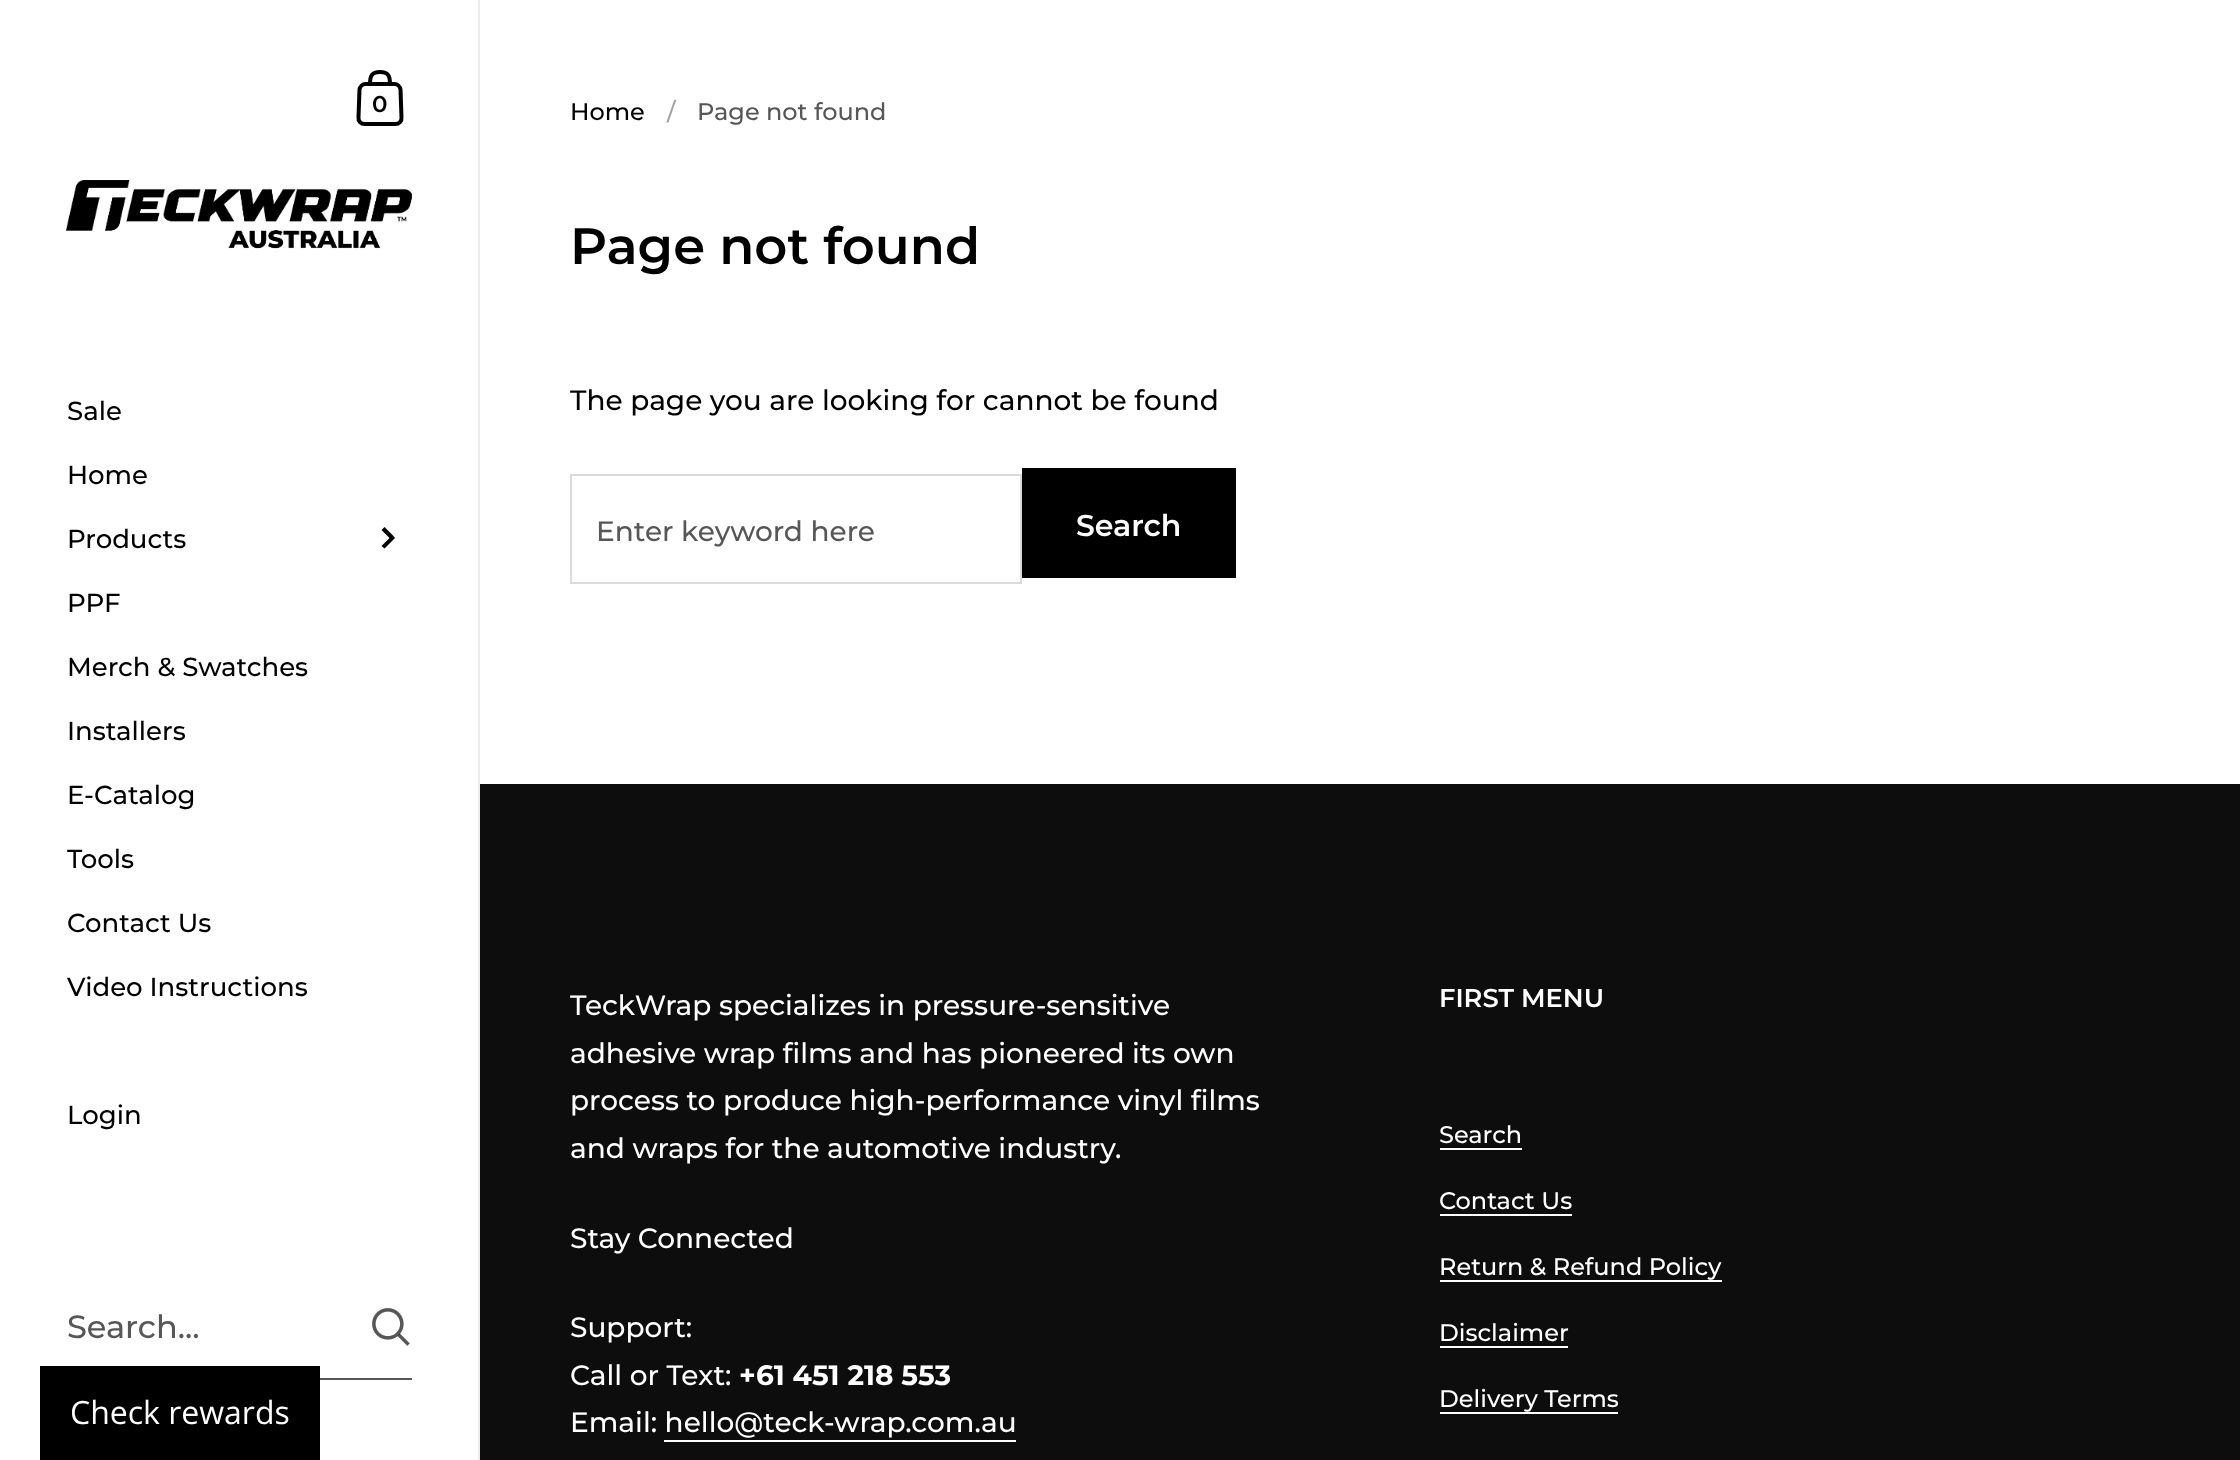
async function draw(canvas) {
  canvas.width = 2240;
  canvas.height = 1460;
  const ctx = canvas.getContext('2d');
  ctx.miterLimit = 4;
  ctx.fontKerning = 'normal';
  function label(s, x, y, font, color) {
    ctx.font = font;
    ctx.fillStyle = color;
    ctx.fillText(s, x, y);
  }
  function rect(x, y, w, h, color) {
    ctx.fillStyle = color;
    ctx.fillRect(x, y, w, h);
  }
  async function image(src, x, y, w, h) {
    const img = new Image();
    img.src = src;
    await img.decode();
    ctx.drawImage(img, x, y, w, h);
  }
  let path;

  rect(0, 0, 2240, 1460, '#fff');
  rect(478, 0, 2, 1460, '#ebebeb');
  path = new Path2D('M370 84H365.5C362.5 84 360 86.5 359.5 89.5L358.5 117.5C358 121 361 124 364.5 124H395.5C399 124 402 121 401.5 117.5L400.5 89.5C400 86.5 397.5 84 394.5 84H390M370 84C370 76.5 371.5 72 380 72C388.5 72 390 76.5 390 84M370 84H390');
  ctx.strokeStyle = '#000';
  ctx.lineWidth = 4;
  ctx.stroke(path);
  label('0', 372, 112, '600 23px Montserrat', '#000');
  await image('assets/img1.png', 66, 180, 346, 69);
  label('Sale', 67, 420, '500 26px Montserrat', '#000');
  label('Home', 67, 484, '500 26px Montserrat', '#000');
  label('Products', 67, 548, '500 26px Montserrat', '#000');
  path = new Path2D('M392.5 535L384.5 527L381.5 530L389.5 538L381.5 546L384.5 548.5L395 538Z');
  ctx.fill(path, 'evenodd');
  label('PPF', 67, 612, '500 26px Montserrat', '#000');
  label('Merch & Swatches', 67, 676, '500 26px Montserrat', '#000');
  label('Installers', 67, 740, '500 26px Montserrat', '#000');
  label('E-Catalog', 67, 804, '500 26px Montserrat', '#000');
  label('Tools', 67, 868, '500 26px Montserrat', '#000');
  label('Contact Us', 67, 932, '500 26px Montserrat', '#000');
  label('Video Instructions', 67, 996, '500 26px Montserrat', '#000');
  label('Login', 67, 1124, '500 26px Montserrat', '#000');
  rect(320, 1378, 92, 2, '#575757');
  label('Search...', 67, 1338, '500 32px Montserrat', '#575757');
  await image('assets/img2.png', 372, 1308, 38, 38);
  label('Home', 570, 120, '500 24px Montserrat', '#000');
  label('/', 667, 120, '500 24px Montserrat', '#a3a3a3');
  label('Page not found', 697, 120, '500 24px Montserrat', '#575757');
  label('Page not found', 570, 264, '600 51.25px Montserrat', '#000');
  label('The page you are looking for cannot be found', 570, 410, '500 28px Montserrat', '#000');
  ctx.strokeStyle = '#dbdbdb';
  ctx.lineWidth = 2;
  ctx.strokeRect(571, 475, 450, 108);
  label('Enter keyword here', 596, 541, '500 28px Montserrat', '#575757');
  rect(1022, 468, 214, 110, '#000');
  label('Search', 1076, 536, '600 30px Montserrat', '#fff');
  rect(480, 784, 1760, 676, '#0d0d0d');
  label('TeckWrap specializes in pressure-sensitive', 570, 1015, '500 28px Montserrat', '#fff');
  label('adhesive wrap films and has pioneered its own', 570, 1063, '500 28px Montserrat', '#fff');
  label('process to produce high-performance vinyl films', 570, 1110, '500 28px Montserrat', '#fff');
  label('and wraps for the automotive industry.', 570, 1158, '500 28px Montserrat', '#fff');
  label('Stay Connected', 570, 1248, '500 28px Montserrat', '#fff');
  label('Support:', 570, 1337, '500 28px Montserrat', '#fff');
  label('Call or Text: ', 570, 1385, '500 28px Montserrat', '#fff');
  label('+61 451 218 553', 739, 1385, 'bold 28px Montserrat', '#fff');
  label('Email: hello@teck-wrap.com.au', 570, 1432, '500 28px Montserrat', '#fff');
  rect(664, 1440, 352, 2, '#fff');
  label('FIRST MENU', 1439, 1007, '600 25.75px Montserrat', '#fff');
  label('Search', 1439, 1143, '500 24px Montserrat', '#fff');
  rect(1440, 1148, 82, 2, '#fff');
  label('Contact Us', 1439, 1209, '500 24px Montserrat', '#fff');
  rect(1440, 1214, 132, 2, '#fff');
  label('Return & Refund Policy', 1439, 1275, '500 24px Montserrat', '#fff');
  rect(1440, 1280, 282, 2, '#fff');
  label('Disclaimer', 1439, 1341, '500 24px Montserrat', '#fff');
  rect(1440, 1346, 128, 2, '#fff');
  label('Delivery Terms', 1439, 1407, '500 24px Montserrat', '#fff');
  rect(1440, 1412, 178, 2, '#fff');
  rect(40, 1366, 280, 94, '#000');
  label('Check rewards', 70, 1424, '32px Open Sans', '#fff');
}

draw(document.querySelector('canvas'));
